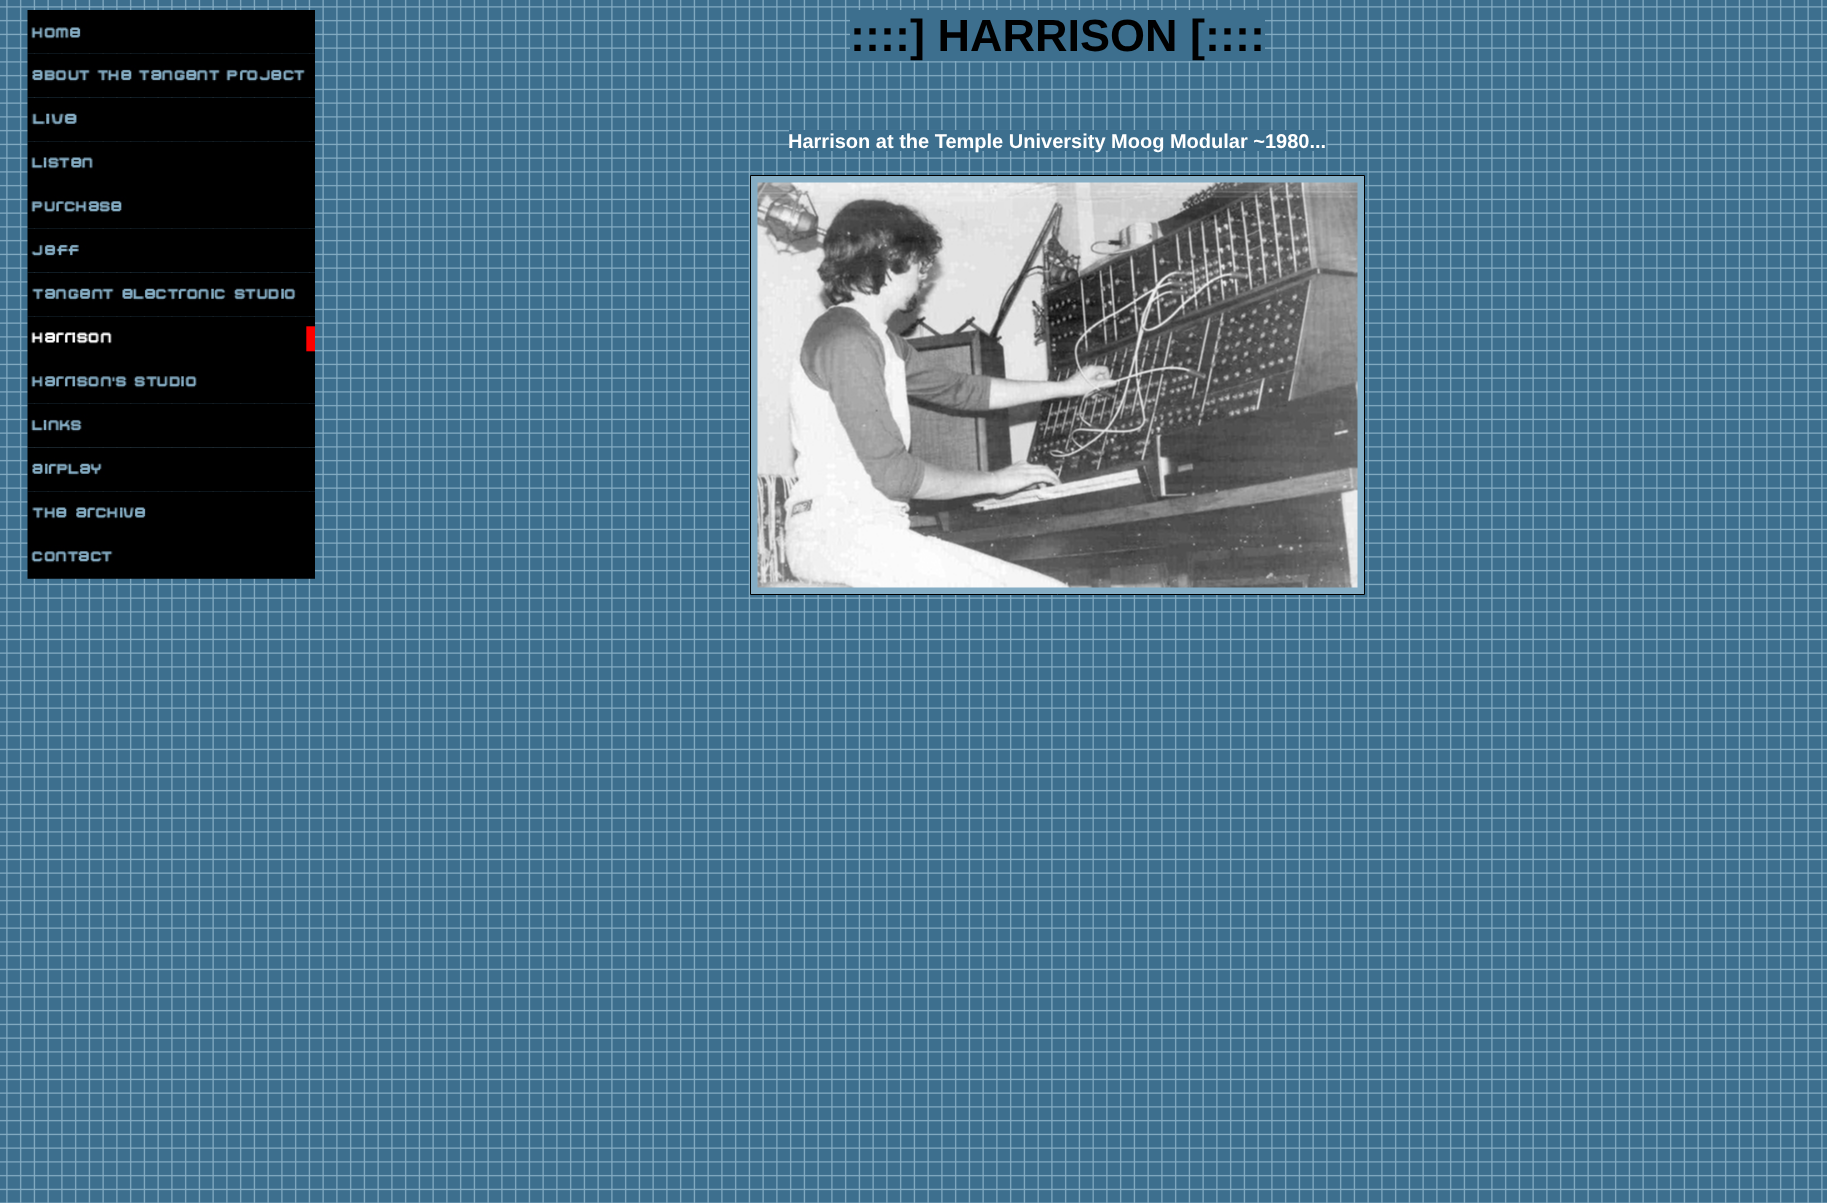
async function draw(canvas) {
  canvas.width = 1827;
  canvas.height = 1203;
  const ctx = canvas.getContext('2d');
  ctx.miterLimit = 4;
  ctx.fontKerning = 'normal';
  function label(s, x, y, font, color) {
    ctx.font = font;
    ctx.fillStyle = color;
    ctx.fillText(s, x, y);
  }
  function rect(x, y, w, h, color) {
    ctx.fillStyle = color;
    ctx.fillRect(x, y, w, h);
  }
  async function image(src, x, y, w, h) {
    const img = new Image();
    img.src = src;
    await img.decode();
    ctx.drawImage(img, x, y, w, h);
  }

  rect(0, 0, 1827, 1203, '#fff');
  await image('assets/img1.png', 0, 0, 1827, 1203);
  await image('assets/img3.png', 27, 10, 288, 44);
  await image('assets/img2.png', 27, 53, 288, 45);
  rect(850, 10, 415, 51, '#3d6f8e');
  label('::::] HARRISON [::::', 850, 51, 'bold 45px Liberation Sans', '#000');
  rect(789, 130, 537, 21, '#3d6f8e');
  label('Harrison at the Temple University Moog Modular ~1980...', 788, 148, 'bold 20px Liberation Sans', '#fff');
  ctx.fillStyle = '#85adc4';
  ctx.beginPath();
  ctx.rect(750.5, 175.5, 614, 419);
  ctx.fill();
  ctx.strokeStyle = '#000';
  ctx.stroke();
  await image('assets/img4.png', 757, 182, 601, 406);
  await image('assets/img5.png', 27, 97, 288, 45);
  await image('assets/img6.png', 27, 141, 288, 44);
  await image('assets/img7.png', 27, 185, 288, 44);
  await image('assets/img8.png', 27, 228, 288, 45);
  await image('assets/img9.png', 27, 272, 288, 45);
  await image('assets/img10.png', 27, 316, 288, 44);
  await image('assets/img11.png', 27, 360, 288, 44);
  await image('assets/img12.png', 27, 403, 288, 45);
  await image('assets/img13.png', 27, 447, 288, 45);
  await image('assets/img14.png', 27, 491, 288, 44);
  await image('assets/img15.png', 27, 535, 288, 44);
}

draw(document.querySelector('canvas'));
